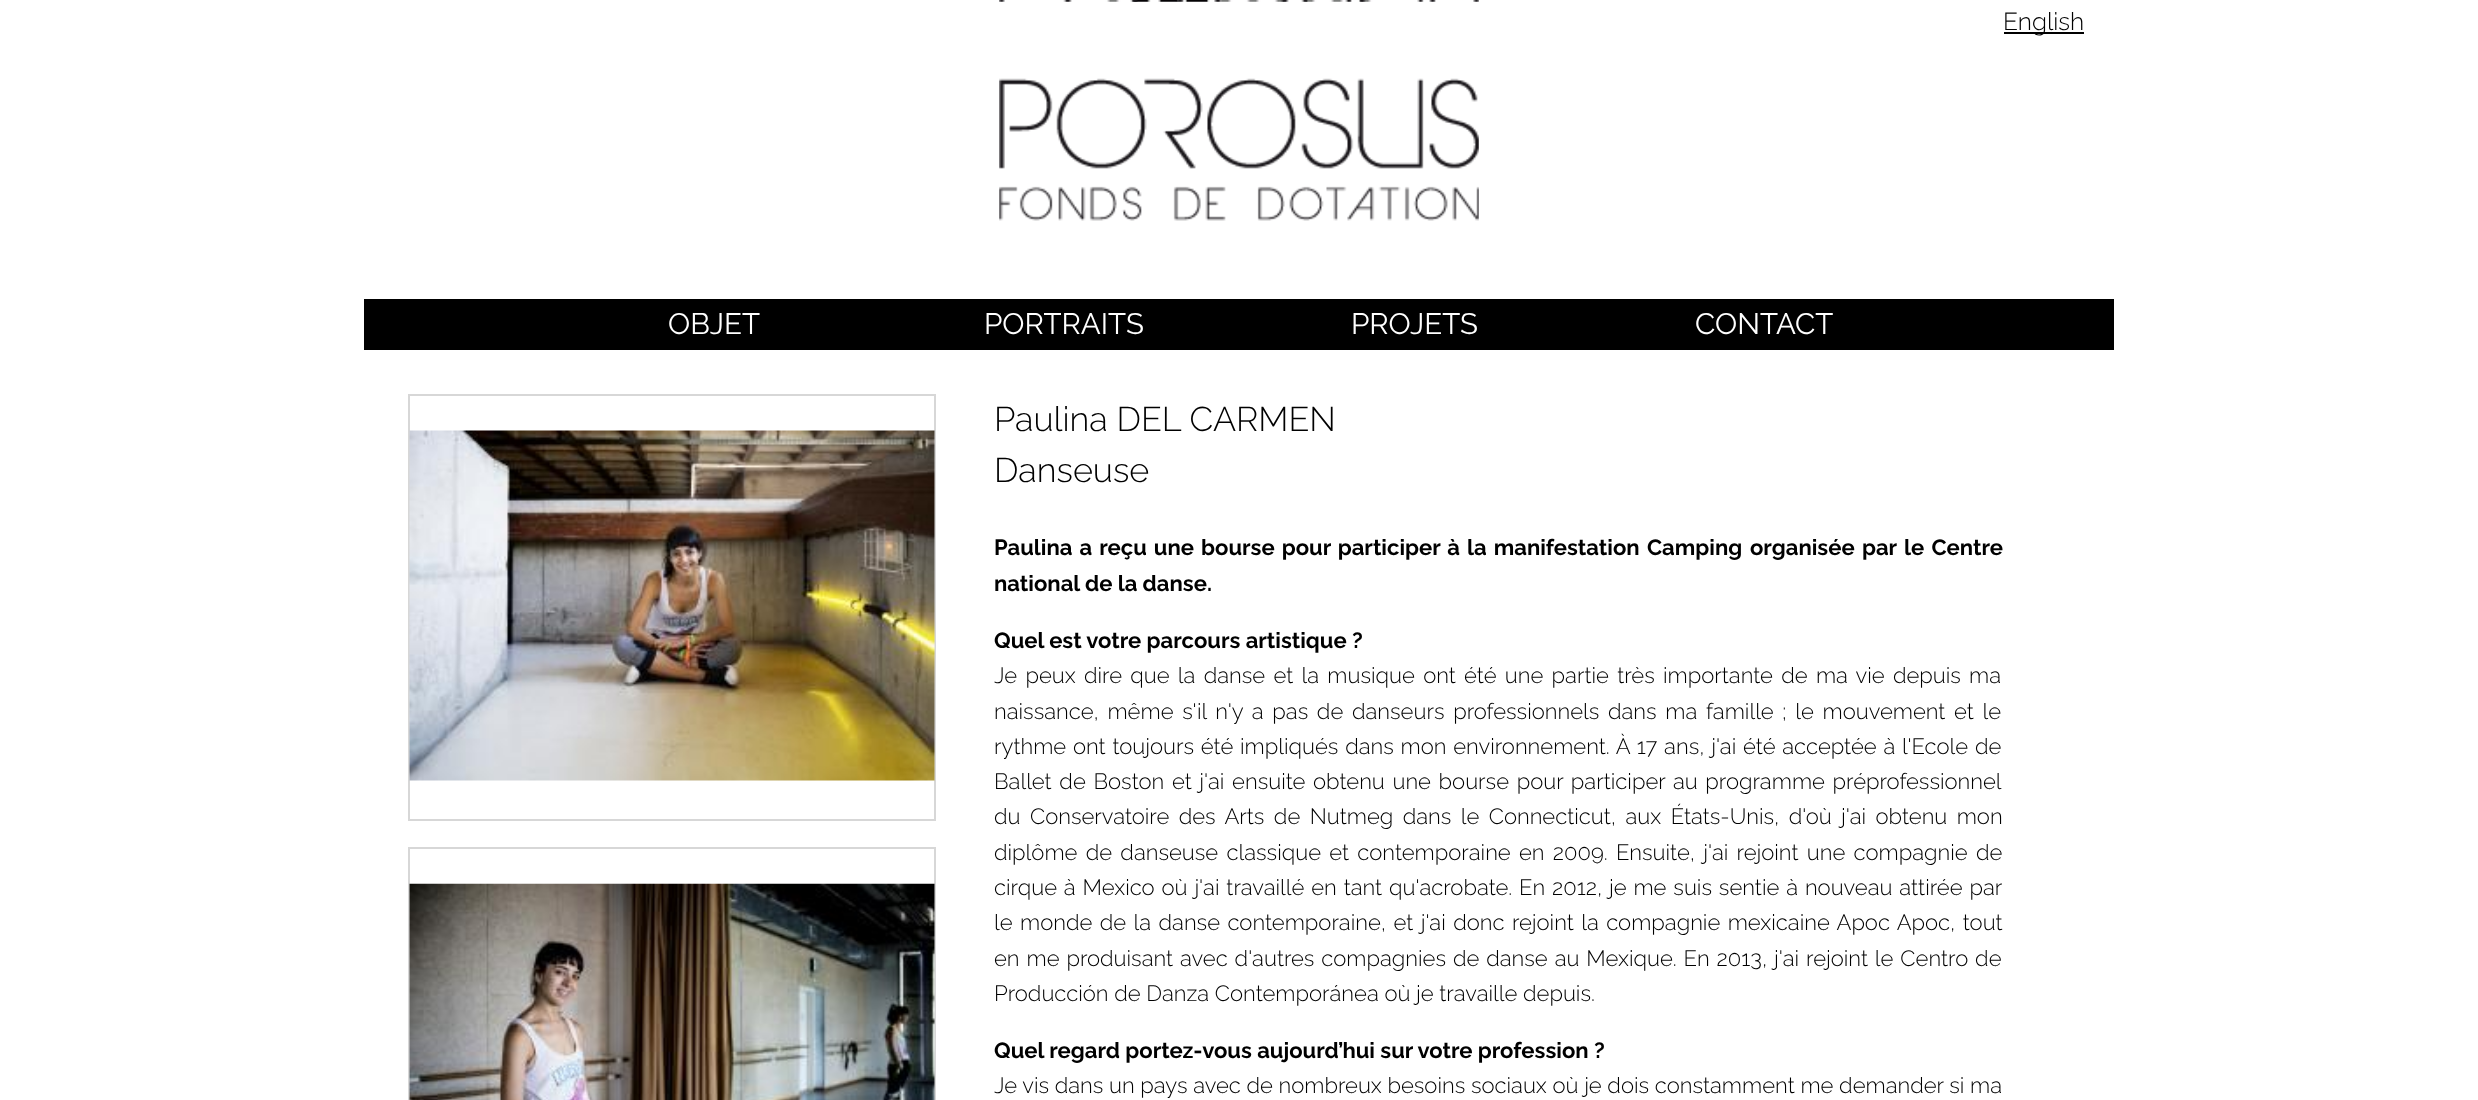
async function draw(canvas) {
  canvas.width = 2478;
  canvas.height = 1100;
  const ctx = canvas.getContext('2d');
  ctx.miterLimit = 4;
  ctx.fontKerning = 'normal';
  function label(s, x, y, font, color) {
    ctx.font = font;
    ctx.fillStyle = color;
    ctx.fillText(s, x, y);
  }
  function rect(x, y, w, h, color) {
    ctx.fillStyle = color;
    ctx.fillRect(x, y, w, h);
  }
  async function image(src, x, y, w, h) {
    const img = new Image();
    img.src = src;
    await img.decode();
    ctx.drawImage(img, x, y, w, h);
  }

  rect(0, 0, 2478, 1100, '#fff');
  await image('assets/img1.png', 999, 0, 480, 2);
  rect(2004, 32, 80, 2, '#000');
  label('English', 2003, 30, '300 24.5px Raleway', '#000');
  await image('assets/img2.png', 999, 78, 480, 143);
  rect(364, 299, 1750, 51, '#000');
  label('OBJET', 668, 334, '29.5px Raleway', '#fff');
  label('PORTRAITS', 984, 334, '29.5px Raleway', '#fff');
  label('PROJETS', 1351, 334, '29.5px Raleway', '#fff');
  label('CONTACT', 1695, 334, '29.5px Raleway', '#fff');
  ctx.strokeStyle = '#d7d7d7';
  ctx.lineWidth = 2;
  ctx.strokeRect(409, 395, 526, 425);
  await image('assets/img3.png', 409, 430, 526, 351);
  ctx.strokeRect(409, 848, 526, 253);
  await image('assets/img4.png', 409, 883, 526, 217);
  label('Paulina DEL CARMEN', 994, 431, '300 34.25px Raleway', '#000');
  label('Danseuse', 994, 482, '300 34.25px Raleway', '#000');
  ctx.wordSpacing = '1.75px';
  label('Paulina a reçu une bourse pour participer à la manifestation', 994, 555, 'bold 22.05px Raleway', '#000');
  ctx.wordSpacing = '0px';
  label('Camping', 1647, 555, 'bold 22.05px Raleway', '#000');
  ctx.wordSpacing = '2px';
  label('organisée par le Centre', 1750, 555, 'bold 22.05px Raleway', '#000');
  ctx.wordSpacing = '0px';
  label('national de la danse.', 994, 591, 'bold 22.05px Raleway', '#000');
  label('Quel est votre parcours artistique ?', 994, 648, 'bold 22.05px Raleway', '#000');
  ctx.wordSpacing = '2.6px';
  label('Je peux dire que la danse et la musique ont été une partie très importante de ma vie depuis ma', 994, 683, '300 22.05px Raleway', '#000');
  ctx.wordSpacing = '3px';
  label('naissance, même s\'il n\'y a pas de danseurs professionnels dans ma famille ; le mouvement et le', 994, 719, '300 22.05px Raleway', '#000');
  ctx.wordSpacing = '1.1px';
  label('rythme ont toujours été impliqués dans mon environnement. À 17 ans, j\'ai été acceptée à l\'Ecole de', 994, 754, '300 22.05px Raleway', '#000');
  ctx.wordSpacing = '2px';
  label('Ballet de Boston et j\'ai ensuite obtenu une bourse pour participer au programme préprofessionnel', 994, 789, '300 22.05px Raleway', '#000');
  ctx.wordSpacing = '3.75px';
  label('du Conservatoire des Arts de Nutmeg dans le Connecticut, aux États-Unis, d\'où j\'ai obtenu mon', 994, 824, '300 22.05px Raleway', '#000');
  ctx.wordSpacing = '2.6px';
  label('diplôme de danseuse classique et contemporaine en 2009. Ensuite, j\'ai rejoint une compagnie de', 994, 860, '300 22.05px Raleway', '#000');
  ctx.wordSpacing = '1.2px';
  label('cirque à Mexico où j\'ai travaillé en tant qu\'acrobate. En 2012, je me suis sentie à nouveau attirée par', 994, 895, '300 22.05px Raleway', '#000');
  ctx.wordSpacing = '1.75px';
  label('le monde de la danse contemporaine, et j\'ai donc rejoint la compagnie mexicaine Apoc Apoc, tout', 994, 930, '300 22.05px Raleway', '#000');
  ctx.wordSpacing = '1.25px';
  label('en me produisant avec d\'autres compagnies de danse au Mexique. En 2013, j\'ai rejoint le Centro de', 994, 966, '300 22.05px Raleway', '#000');
  ctx.wordSpacing = '0px';
  label('Producción de Danza Contemporánea où je travaille depuis.', 994, 1001, '300 22.05px Raleway', '#000');
  label('Quel regard portez-vous aujourd’hui sur votre profession ?', 994, 1058, 'bold 22.05px Raleway', '#000');
  label('Je vis dans un pays avec de nombreux besoins sociaux où je dois constamment me demander si ma', 994, 1093, '300 22.05px Raleway', '#000');
}

draw(document.querySelector('canvas'));
